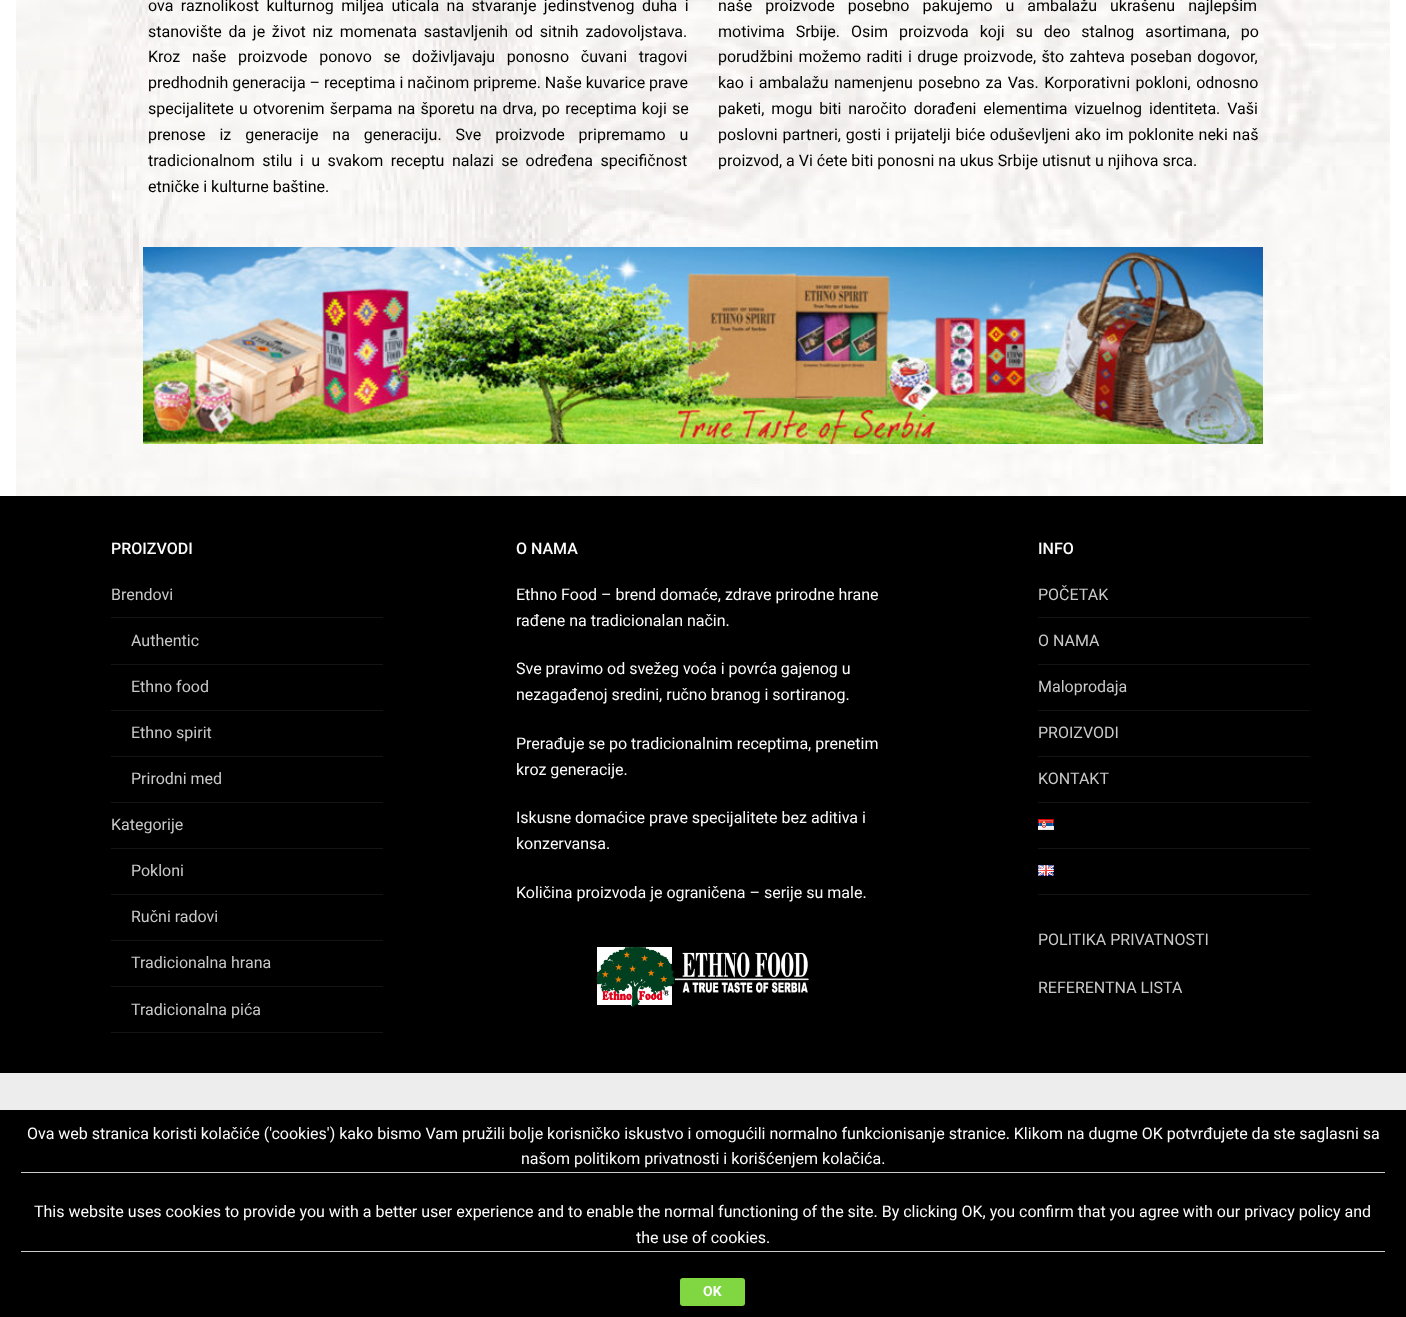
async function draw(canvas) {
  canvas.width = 1406;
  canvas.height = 1317;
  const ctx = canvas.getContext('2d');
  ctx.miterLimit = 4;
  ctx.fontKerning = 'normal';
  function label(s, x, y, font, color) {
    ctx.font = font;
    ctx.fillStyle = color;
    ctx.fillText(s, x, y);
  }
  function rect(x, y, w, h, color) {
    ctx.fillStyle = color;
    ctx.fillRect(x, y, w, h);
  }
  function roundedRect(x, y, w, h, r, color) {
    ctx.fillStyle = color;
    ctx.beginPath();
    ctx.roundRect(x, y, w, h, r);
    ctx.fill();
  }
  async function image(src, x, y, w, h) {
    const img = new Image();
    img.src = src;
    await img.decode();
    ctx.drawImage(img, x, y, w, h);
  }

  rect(0, 0, 1406, 1317, '#fff');
  await image('assets/img1.png', 16, 0, 1374, 496);
  ctx.wordSpacing = '3.5px';
  label('ova raznolikost kulturnog miljea uticala na stvaranje jedinstvenog duha i', 148, 11, '16px Roboto', '#000');
  ctx.wordSpacing = '2.75px';
  label('stanovište da je život niz momenata sastavljenih od sitnih zadovoljstava.', 148, 37, '16px Roboto', '#000');
  ctx.wordSpacing = '7.75px';
  label('Kroz naše proizvode ponovo se doživljavaju ponosno čuvani tragovi', 148, 62, '16px Roboto', '#000');
  ctx.wordSpacing = '0px';
  label('predhodnih generacija – receptima i načinom pripreme. Naše kuvarice prave', 148, 88, '16px Roboto', '#000');
  ctx.wordSpacing = '1.25px';
  label('specijalitete u otvorenim šerpama na šporetu na drva, po receptima koji se', 148, 114, '16px Roboto', '#000');
  ctx.wordSpacing = '10px';
  label('prenose iz generacije na generaciju. Sve proizvode pripremamo u', 148, 140, '16px Roboto', '#000');
  ctx.wordSpacing = '3.5px';
  label('tradicionalnom stilu i u svakom receptu nalazi se određena specifičnost', 148, 166, '16px Roboto', '#000');
  ctx.wordSpacing = '0px';
  label('etničke i kulturne baštine.', 148, 192, '16px Roboto', '#000');
  ctx.wordSpacing = '9px';
  label('naše proizvode posebno pakujemo u ambalažu ukrašenu najlepšim', 718, 11, '16px Roboto', '#000');
  ctx.wordSpacing = '7px';
  label('motivima Srbije. Osim proizvoda koji su deo stalnog asortimana, po', 718, 37, '16px Roboto', '#000');
  ctx.wordSpacing = '1.5px';
  label('porudžbini možemo raditi i druge proizvode, što zahteva poseban dogovor,', 718, 62, '16px Roboto', '#000');
  label('kao i ambalažu namenjenu posebno za Vas. Korporativni pokloni, odnosno', 718, 88, '16px Roboto', '#000');
  ctx.wordSpacing = '3px';
  label('paketi, mogu biti naročito dorađeni elementima vizuelnog identiteta. Vaši', 718, 114, '16px Roboto', '#000');
  ctx.wordSpacing = '0.75px';
  label('poslovni partneri, gosti i prijatelji biće oduševljeni ako im poklonite neki naš', 718, 140, '16px Roboto', '#000');
  ctx.wordSpacing = '0px';
  label('proizvod, a Vi ćete biti ponosni na ukus Srbije utisnut u njihova srca.', 718, 166, '16px Roboto', '#000');
  await image('assets/img2.png', 143, 247, 1120, 197);
  rect(0, 496, 1406, 577, '#000');
  label('PROIZVODI', 111, 554, '500 16px Roboto', '#fcfcfc');
  rect(111, 617, 272, 1, '#141414');
  label('Brendovi', 111, 600, '16px Roboto', '#c9c9c9');
  rect(111, 664, 272, 1, '#141414');
  label('Authentic', 131, 646, '16px Roboto', '#c9c9c9');
  rect(111, 710, 272, 1, '#141414');
  label('Ethno food', 131, 692, '16px Roboto', '#c9c9c9');
  rect(111, 756, 272, 1, '#141414');
  label('Ethno spirit', 131, 738, '16px Roboto', '#c9c9c9');
  rect(111, 802, 272, 1, '#141414');
  label('Prirodni med', 131, 784, '16px Roboto', '#c9c9c9');
  rect(111, 848, 272, 1, '#141414');
  label('Kategorije', 111, 830, '16px Roboto', '#c9c9c9');
  rect(111, 894, 272, 1, '#141414');
  label('Pokloni', 131, 876, '16px Roboto', '#c9c9c9');
  rect(111, 940, 272, 1, '#141414');
  label('Ručni radovi', 131, 922, '16px Roboto', '#c9c9c9');
  rect(111, 986, 272, 1, '#141414');
  label('Tradicionalna hrana', 131, 968, '16px Roboto', '#c9c9c9');
  rect(111, 1032, 272, 1, '#141414');
  label('Tradicionalna pića', 131, 1015, '16px Roboto', '#c9c9c9');
  label('O NAMA', 516, 554, '500 16px Roboto', '#fcfcfc');
  label('Ethno Food – brend domaće, zdrave prirodne hrane', 516, 600, '16px Roboto', '#fcfcfc');
  label('rađene na tradicionalan način.', 516, 626, '16px Roboto', '#fcfcfc');
  label('Sve pravimo od svežeg voća i povrća gajenog u', 516, 674, '16px Roboto', '#fcfcfc');
  label('nezagađenoj sredini, ručno branog i sortiranog.', 516, 700, '16px Roboto', '#fcfcfc');
  label('Prerađuje se po tradicionalnim receptima, prenetim', 516, 749, '16px Roboto', '#fcfcfc');
  label('kroz generacije.', 516, 775, '16px Roboto', '#fcfcfc');
  label('Iskusne domaćice prave specijalitete bez aditiva i', 516, 823, '16px Roboto', '#fcfcfc');
  label('konzervansa.', 516, 849, '16px Roboto', '#fcfcfc');
  label('Količina proizvoda je ograničena – serije su male.', 516, 898, '16px Roboto', '#fcfcfc');
  await image('assets/img3.png', 596, 946, 213, 62);
  label('INFO', 1038, 554, '500 16px Roboto', '#fcfcfc');
  rect(1038, 617, 272, 1, '#141414');
  label('POČETAK', 1038, 600, '16px Roboto', '#c9c9c9');
  rect(1038, 664, 272, 1, '#141414');
  label('O NAMA', 1038, 646, '16px Roboto', '#c9c9c9');
  rect(1038, 710, 272, 1, '#141414');
  label('Maloprodaja', 1038, 692, '16px Roboto', '#c9c9c9');
  rect(1038, 756, 272, 1, '#141414');
  label('PROIZVODI', 1038, 738, '16px Roboto', '#c9c9c9');
  rect(1038, 802, 272, 1, '#141414');
  label('KONTAKT', 1038, 784, '16px Roboto', '#c9c9c9');
  rect(1038, 848, 272, 1, '#141414');
  await image('assets/img4.png', 1038, 819, 16, 11);
  rect(1038, 894, 272, 1, '#141414');
  await image('assets/img5.png', 1038, 865, 16, 11);
  label('POLITIKA PRIVATNOSTI', 1038, 945, '16px Roboto', '#c9c9c9');
  label('REFERENTNA LISTA', 1038, 993, '16px Roboto', '#c9c9c9');
  rect(0, 1073, 1406, 37, '#ededed');
  rect(0, 1110, 1406, 207, '#000');
  label('Ova web stranica koristi kolačiće (\'cookies\') kako bismo Vam pružili bolje korisničko iskustvo i omogućili normalno funkcionisanje stranice. Klikom na dugme OK potvrđujete da ste saglasni sa', 27, 1139, '16px Roboto', '#fcfcfc');
  label('našom politikom privatnosti i korišćenjem kolačića.', 521, 1164, '16px Roboto', '#fcfcfc');
  rect(21, 1172, 1364, 1, '#ccc');
  label('This website uses cookies to provide you with a better user experience and to enable the normal functioning of the site. By clicking OK, you confirm that you agree with our privacy policy and', 34, 1217, '16px Roboto', '#fcfcfc');
  label('the use of cookies.', 636, 1243, '16px Roboto', '#fcfcfc');
  rect(21, 1251, 1364, 1, '#ccc');
  roundedRect(680, 1278, 65, 28, 3, '#81d742');
  label('OK', 703, 1296, 'bold 14px Roboto', '#fcfcfc');
}

draw(document.querySelector('canvas'));
